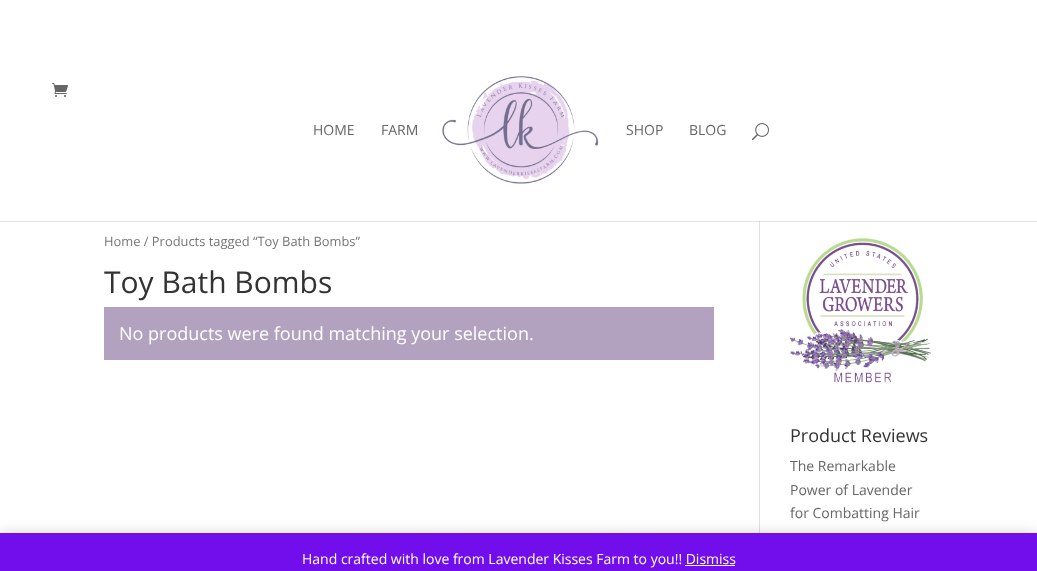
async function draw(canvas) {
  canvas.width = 1037;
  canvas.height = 571;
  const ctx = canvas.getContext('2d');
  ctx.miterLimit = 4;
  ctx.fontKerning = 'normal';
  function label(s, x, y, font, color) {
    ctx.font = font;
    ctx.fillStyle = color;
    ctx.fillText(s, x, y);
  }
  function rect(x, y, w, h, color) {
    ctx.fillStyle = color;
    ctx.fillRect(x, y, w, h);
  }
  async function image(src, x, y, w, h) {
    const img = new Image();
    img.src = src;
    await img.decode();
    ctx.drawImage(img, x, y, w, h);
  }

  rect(0, 0, 1037, 571, '#fff');
  rect(0, 221, 1037, 1, '#e6e6e6');
  await image('assets/img1.png', 52, 83, 16, 14);
  label('HOME', 313, 135, '14px Open Sans', '#666');
  label('FARM', 381, 135, '14px Open Sans', '#666');
  await image('assets/img2.png', 442, 76, 157, 108);
  label('SHOP', 626, 135, '14px Open Sans', '#666');
  label('BLOG', 689, 135, '14px Open Sans', '#666');
  await image('assets/img3.png', 752, 123, 17, 18);
  rect(759, 222, 1, 311, '#e2e2e2');
  rect(759, 221, 1, 1, '#cbcbcb');
  label('Home / Products tagged “Toy Bath Bombs”', 104, 246, '12.9px Open Sans', '#767676');
  label('Toy Bath Bombs', 104, 293, '30px Open Sans', '#333');
  rect(104, 307, 610, 53, '#b3a2bf');
  label('No products were found matching your selection.', 119, 340, '18px Open Sans', '#fff');
  await image('assets/img4.png', 790, 238, 141, 145);
  label('Product Reviews', 790, 442, '18px Open Sans', '#333');
  label('The Remarkable', 790, 471, '14px Open Sans', '#666');
  label('Power of Lavender', 790, 495, '14px Open Sans', '#666');
  label('for Combatting Hair', 790, 518, '14px Open Sans', '#666');
  ctx.fillStyle = '#00000033';
  ctx.filter = 'blur(7px)';
  ctx.beginPath();
  ctx.rect(0, 534, 1037, 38);
  ctx.fill();
  ctx.filter = 'none';
  rect(0, 533, 1037, 38, '#720eec');
  label('Hand crafted with love from Lavender Kisses Farm to you!! Dismiss', 302, 564, '14px Open Sans', '#fff');
  rect(685, 565, 50, 1, '#fcfbfe');
}

draw(document.querySelector('canvas'));
